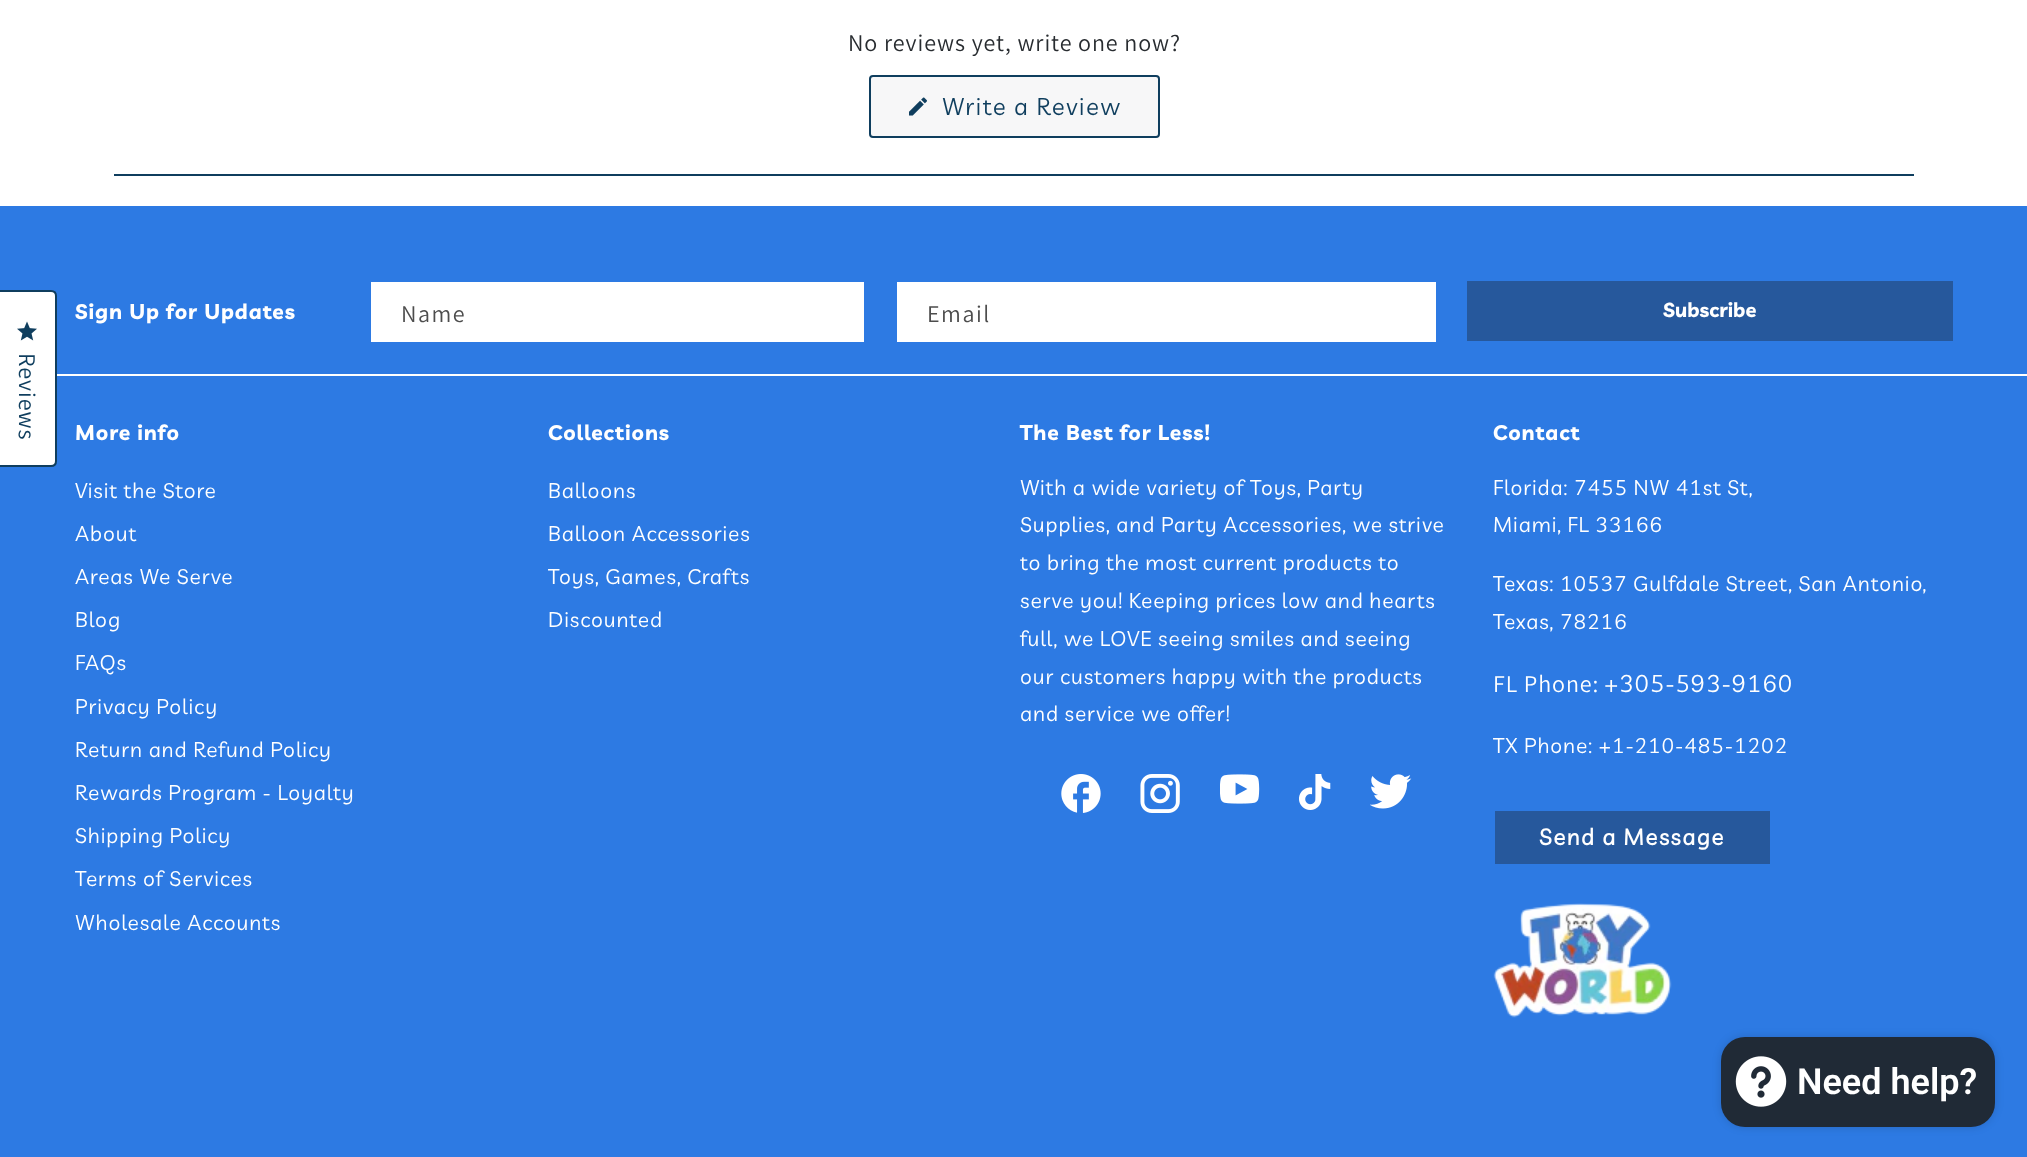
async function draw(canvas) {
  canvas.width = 2027;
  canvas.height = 1157;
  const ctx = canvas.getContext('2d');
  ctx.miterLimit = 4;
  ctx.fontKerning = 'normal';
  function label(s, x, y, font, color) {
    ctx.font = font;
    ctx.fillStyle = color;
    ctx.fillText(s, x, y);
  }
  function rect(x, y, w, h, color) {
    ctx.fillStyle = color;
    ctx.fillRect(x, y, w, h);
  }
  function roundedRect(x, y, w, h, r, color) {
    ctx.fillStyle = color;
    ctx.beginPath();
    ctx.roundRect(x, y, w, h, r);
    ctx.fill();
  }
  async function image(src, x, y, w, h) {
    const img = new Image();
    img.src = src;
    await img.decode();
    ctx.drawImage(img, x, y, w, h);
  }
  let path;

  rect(0, 0, 2027, 1157, '#fff');
  rect(114, 174, 1800, 2, '#0f3e5e');
  ctx.letterSpacing = '0.9px';
  label('No reviews yet, write one now?', 848, 51, '24px Assistant', '#282c30');
  ctx.fillStyle = '#f7f7f8';
  ctx.beginPath();
  ctx.roundRect(870, 76, 289, 61, 3);
  ctx.fill();
  ctx.strokeStyle = '#0f3e5e';
  ctx.lineWidth = 2;
  ctx.stroke();
  await image('assets/img1.png', 909, 97, 18, 19);
  ctx.letterSpacing = '1.5px';
  label('Write a Review', 942, 115, '24px Livvic', '#0f3e5e');
  rect(0, 206, 2027, 168, '#2d7ae3');
  ctx.letterSpacing = '0.9px';
  label('Sign Up for Updates', 75, 319, 'bold 21px Livvic', '#fff');
  rect(371, 282, 493, 60, '#fff');
  ctx.letterSpacing = '1.5px';
  label('Name', 401, 322, '24px Assistant', '#4d4d4d');
  rect(897, 282, 539, 60, '#fff');
  rect(1467, 281, 486, 60, '#26589c');
  ctx.letterSpacing = '0px';
  label('Subscribe', 1663, 317, 'bold 20px Livvic', '#fff');
  ctx.letterSpacing = '1.5px';
  label('Email', 927, 322, '24px Assistant', '#4d4d4d');
  rect(0, 376, 2027, 781, '#2d7ae3');
  ctx.fillStyle = '#fff';
  path = new Path2D('M-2 291H51C54 291 56 293 56 296V461C56 464 54 466 51 466H-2Z');
  ctx.fill(path);
  ctx.stroke(path);
  await image('assets/img2.png', 17, 321, 20, 20);
  ctx.letterSpacing = '0.9px';
  ctx.fillStyle = '#0f3e5e';
  ctx.save();
  ctx.translate(19, 353);
  ctx.rotate(90.1 * Math.PI / 180);
  ctx.fillText('Reviews', 0, 0);
  ctx.restore();
  label('More info', 75, 440, 'bold 21px Livvic', '#fff');
  label('Visit the Store', 75, 498, '21px Livvic', '#fff');
  label('About', 75, 541, '21px Livvic', '#fff');
  label('Areas We Serve', 75, 584, '21px Livvic', '#fff');
  label('Blog', 75, 627, '21px Livvic', '#fff');
  label('FAQs', 75, 670, '21px Livvic', '#fff');
  label('Privacy Policy', 75, 714, '21px Livvic', '#fff');
  label('Return and Refund Policy', 75, 757, '21px Livvic', '#fff');
  label('Rewards Program - Loyalty', 75, 800, '21px Livvic', '#fff');
  label('Shipping Policy', 75, 843, '21px Livvic', '#fff');
  label('Terms of Services', 75, 886, '21px Livvic', '#fff');
  label('Wholesale Accounts', 75, 930, '21px Livvic', '#fff');
  label('Collections', 548, 440, 'bold 21px Livvic', '#fff');
  label('Balloons', 548, 498, '21px Livvic', '#fff');
  label('Balloon Accessories', 548, 541, '21px Livvic', '#fff');
  label('Toys, Games, Crafts', 548, 584, '21px Livvic', '#fff');
  label('Discounted', 548, 627, '21px Livvic', '#fff');
  label('The Best for Less!', 1020, 440, 'bold 21px Livvic', '#fff');
  label('With a wide variety of Toys, Party', 1020, 495, '21px Livvic', '#fff');
  label('Supplies, and Party Accessories, we strive', 1020, 532, '21px Livvic', '#fff');
  label('to bring the most current products to', 1020, 570, '21px Livvic', '#fff');
  label('serve you! Keeping prices low and hearts', 1020, 608, '21px Livvic', '#fff');
  label('full, we LOVE seeing smiles and seeing', 1020, 646, '21px Livvic', '#fff');
  label('our customers happy with the products', 1020, 684, '21px Livvic', '#fff');
  label('and service we offer!', 1020, 721, '21px Livvic', '#fff');
  await image('assets/img3.png', 1061, 774, 40, 39);
  await image('assets/img4.png', 1140, 774, 40, 39);
  await image('assets/img5.png', 1220, 774, 40, 30);
  await image('assets/img6.png', 1299, 774, 32, 36);
  await image('assets/img7.png', 1370, 774, 42, 35);
  label('Contact', 1493, 440, 'bold 21px Livvic', '#fff');
  label('Florida: 7455 NW 41st St,', 1493, 495, '21px Livvic', '#fff');
  label('Miami, FL 33166', 1493, 532, '21px Livvic', '#fff');
  label('Texas: 10537 Gulfdale Street, San Antonio,', 1493, 591, '21px Livvic', '#fff');
  label('Texas, 78216', 1493, 629, '21px Livvic', '#fff');
  label('FL Phone:', 1493, 692, '24px Assistant', '#fff');
  label('+305-593-9160', 1604, 692, '24px Livvic', '#fff');
  label('TX Phone: +1-210-485-1202', 1493, 753, '21px Livvic', '#fff');
  rect(1495, 811, 275, 53, '#26589c');
  ctx.letterSpacing = '1.5px';
  label('Send a Message', 1539, 845, 'bold 22.5px "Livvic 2"', '#fff');
  await image('assets/img8.png', 1493, 903, 179, 115);
  ctx.fillStyle = '#00000026';
  ctx.filter = 'blur(4px)';
  ctx.beginPath();
  ctx.roundRect(1721, 1037, 274, 90, 24);
  ctx.fill();
  ctx.filter = 'none';
  roundedRect(1721, 1037, 274, 90, 24, '#202a36');
  await image('assets/img9.png', 1735, 1056, 52, 51);
  ctx.letterSpacing = '0px';
  label('Need help?', 1797, 1094, '600 36px Roboto', '#fff');
}

draw(document.querySelector('canvas'));
